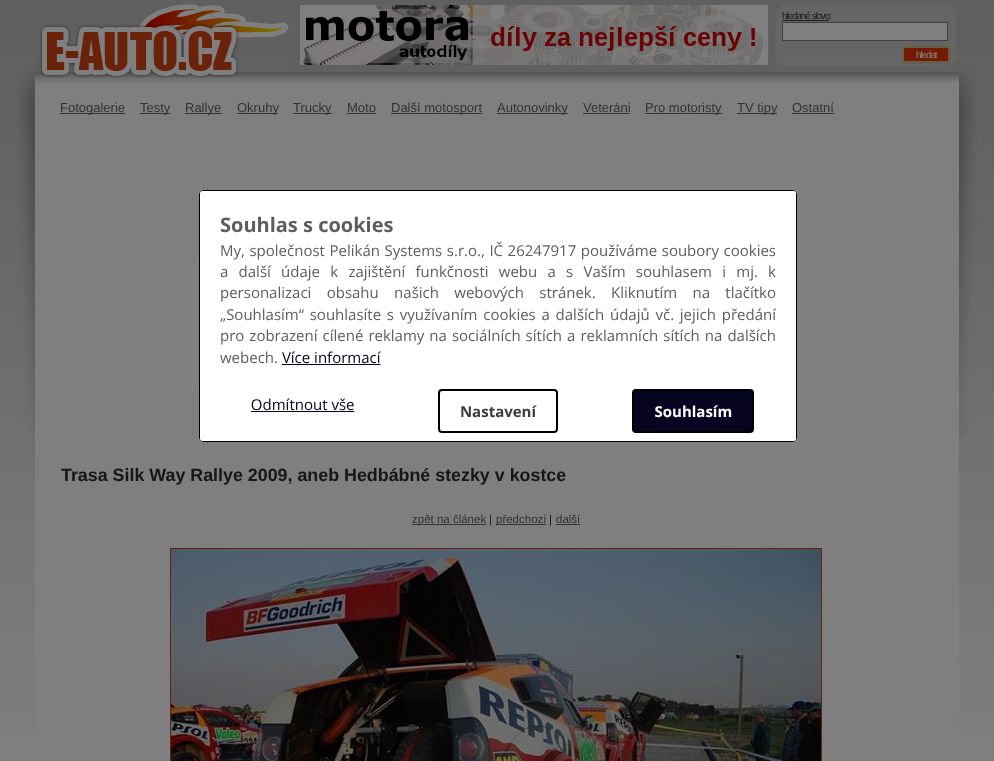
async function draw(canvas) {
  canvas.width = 994;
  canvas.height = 761;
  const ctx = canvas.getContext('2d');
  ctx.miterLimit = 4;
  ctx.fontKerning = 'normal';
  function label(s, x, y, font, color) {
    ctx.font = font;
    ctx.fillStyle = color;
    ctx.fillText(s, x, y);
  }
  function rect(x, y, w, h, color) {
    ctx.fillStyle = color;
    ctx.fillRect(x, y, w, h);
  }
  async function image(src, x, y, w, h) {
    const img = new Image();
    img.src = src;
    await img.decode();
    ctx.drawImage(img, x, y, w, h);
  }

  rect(0, 0, 994, 761, '#fff');
  await image('assets/img1.png', 0, 0, 994, 732);
  await image('assets/img3.png', 17, 65, 18, 373);
  await image('assets/img4.png', 959, 65, 18, 373);
  rect(35, 87, 924, 645, '#fff');
  await image('assets/img5.png', 35, 0, 924, 87);
  await image('assets/img6.png', 35, 4, 254, 74);
  await image('assets/img7.png', 300, 5, 468, 60);
  await image('assets/img8.png', 775, 5, 181, 61);
  ctx.letterSpacing = '-1px';
  label('hledané slovo:', 782, 19, '9.75px Liberation Sans', '#3d3d3d');
  rect(782, 20, 47, 1, '#3d3d3d');
  ctx.fillStyle = '#fff';
  ctx.beginPath();
  ctx.rect(782.5, 22.5, 165, 18);
  ctx.fill();
  ctx.strokeStyle = '#808080';
  ctx.stroke();
  await image('assets/img9.png', 901, 45, 50, 19);
  label('hledat', 916, 58, '9.75px Liberation Sans', '#fff');
  rect(60, 113, 65, 1, '#666');
  ctx.letterSpacing = '0px';
  label('Fotogalerie', 60, 112, '13px Liberation Sans', '#666');
  rect(140, 113, 30, 1, '#666');
  label('Testy', 140, 112, '13px Liberation Sans', '#666');
  rect(185, 113, 37, 1, '#666');
  label('Rallye', 185, 112, '13px Liberation Sans', '#666');
  rect(237, 113, 41, 1, '#666');
  label('Okruhy', 237, 112, '13px Liberation Sans', '#666');
  rect(293, 113, 39, 1, '#666');
  label('Trucky', 293, 112, '13px Liberation Sans', '#666');
  label('Moto', 347, 112, '13px Liberation Sans', '#666');
  rect(347, 113, 29, 1, '#666');
  rect(391, 113, 91, 1, '#666');
  label('Další motosport', 391, 112, '13px Liberation Sans', '#666');
  rect(497, 113, 71, 1, '#666');
  label('Autonovinky', 497, 112, '13px Liberation Sans', '#666');
  label('Veteráni', 583, 112, '13px Liberation Sans', '#666');
  rect(583, 113, 47, 1, '#666');
  rect(645, 113, 77, 1, '#666');
  label('Pro motoristy', 645, 112, '13px Liberation Sans', '#666');
  rect(737, 113, 40, 1, '#666');
  label('TV tipy', 737, 112, '13px Liberation Sans', '#666');
  label('Ostatní', 792, 112, '13px Liberation Sans', '#666');
  rect(792, 113, 42, 1, '#666');
  label('Trasa Silk Way Rallye 2009, aneb Hedbábné stezky v kostce', 61, 481, 'bold 17.85px Liberation Sans', '#2e2e2e');
  rect(412, 524, 74, 1, '#666');
  label('zpět na článek', 412, 523, '11.5px Liberation Sans', '#666');
  label('|', 489, 523, '11.5px Liberation Sans', '#3d3d3d');
  rect(496, 524, 50, 1, '#666');
  label('předchozí', 496, 523, '11.5px Liberation Sans', '#666');
  label('|', 549, 523, '11.5px Liberation Sans', '#3d3d3d');
  label('další', 556, 523, '11.5px Liberation Sans', '#666');
  rect(556, 524, 24, 1, '#666');
  ctx.strokeStyle = '#d54417';
  ctx.strokeRect(170.5, 548.5, 651, 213);
  await image('assets/img10.png', 171, 549, 650, 212);
  ctx.beginPath();
  ctx.roundRect(-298, -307, 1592, 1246, 501);
  ctx.strokeStyle = '#00000080';
  ctx.lineWidth = 994;
  ctx.stroke();
  ctx.beginPath();
  ctx.roundRect(199.5, 190.5, 597, 251, 3.5);
  ctx.strokeStyle = '#000';
  ctx.lineWidth = 1;
  ctx.stroke();
  await image('assets/img2.png', 200, 191, 596, 250);
}

draw(document.querySelector('canvas'));
